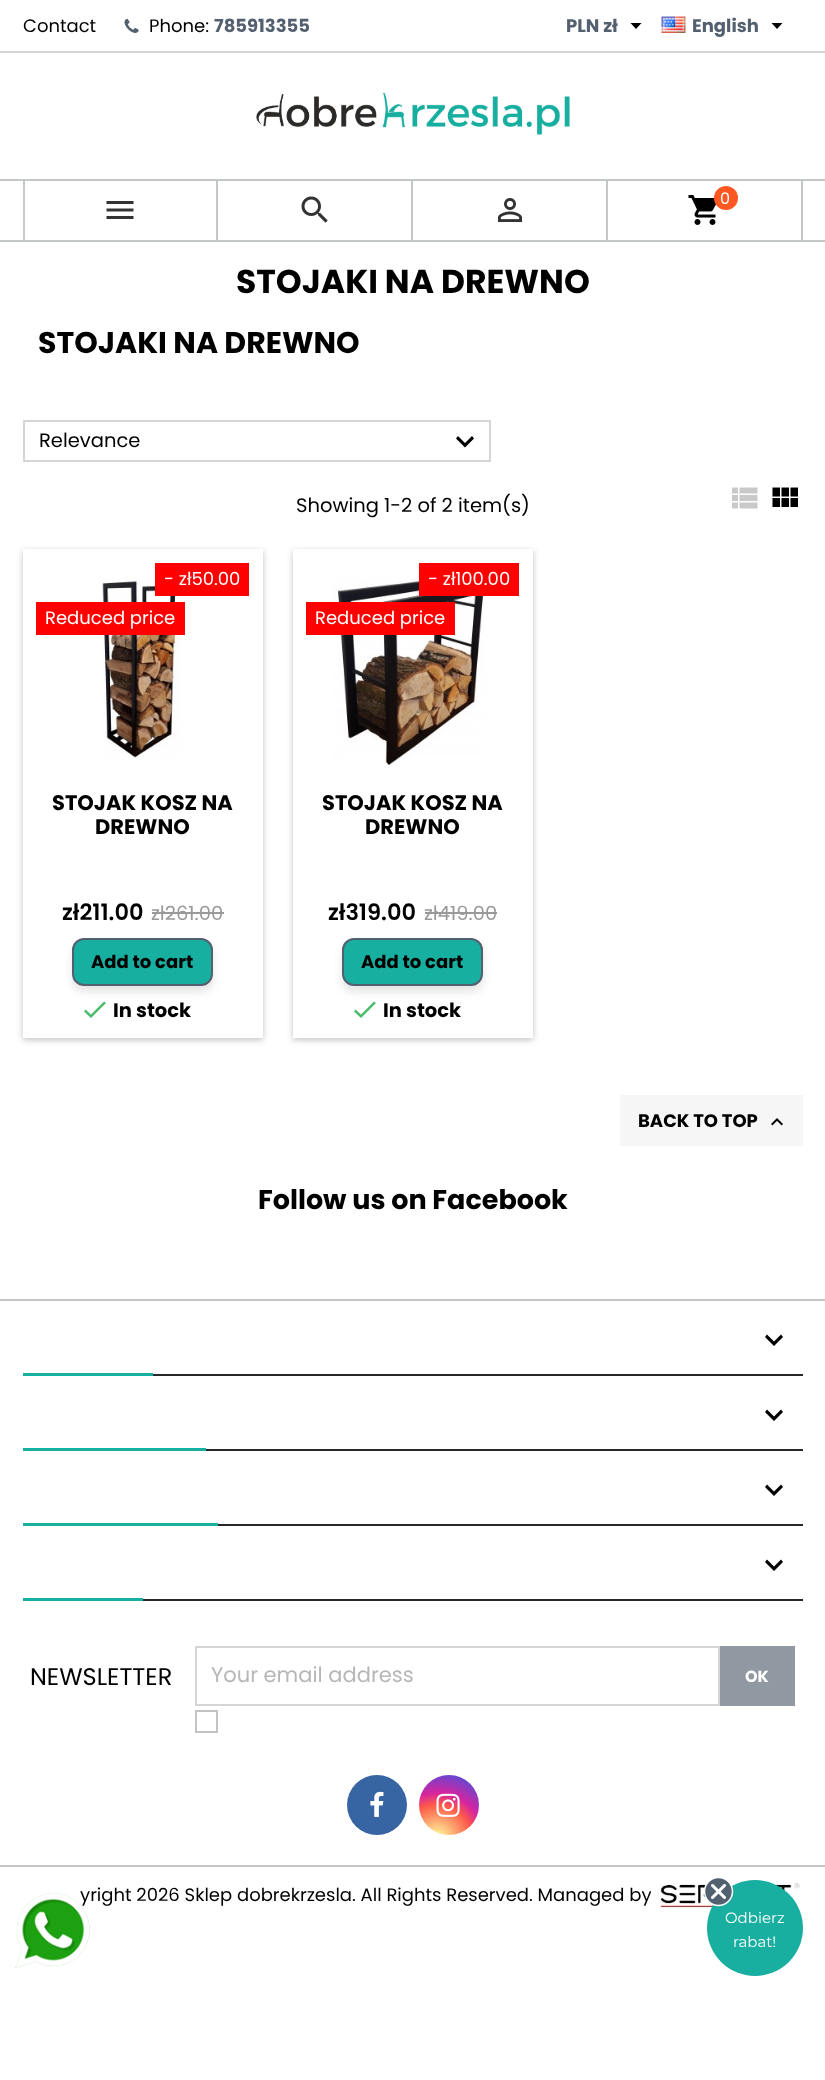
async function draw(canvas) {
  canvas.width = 825;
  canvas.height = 2080;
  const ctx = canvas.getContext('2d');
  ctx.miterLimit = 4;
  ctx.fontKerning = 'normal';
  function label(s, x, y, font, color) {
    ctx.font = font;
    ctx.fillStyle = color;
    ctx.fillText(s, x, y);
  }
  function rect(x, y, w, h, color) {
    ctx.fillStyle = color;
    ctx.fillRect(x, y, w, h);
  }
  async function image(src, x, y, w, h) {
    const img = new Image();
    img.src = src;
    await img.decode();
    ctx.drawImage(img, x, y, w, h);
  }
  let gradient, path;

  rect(0, 0, 825, 2080, '#fff');
  rect(0, 51, 825, 2, '#d6d4d4');
  label('Contact', 23, 32, '18px Poppins', '#000');
  await image('assets/img1.png', 124, 18, 15, 15);
  label('Phone:', 149, 32, '18px Poppins', '#000');
  label('785913355', 214, 32, 'bold 18px Poppins', '#546070');
  label('PLN zł', 566, 32, 'bold 18px Poppins', '#546070');
  ctx.fillStyle = '#000';
  path = new Path2D('M630.5 23H641.5L636 29Z');
  ctx.fill(path);
  await image('assets/img2.png', 661, 16, 25, 17);
  label('English', 692, 32, 'bold 18px Poppins', '#546070');
  ctx.fillStyle = '#000';
  path = new Path2D('M771.5 23H782.5L777 29Z');
  ctx.fill(path);
  await image('assets/img3.png', 256, 92, 314, 43);
  rect(0, 179, 825, 2, '#c4c7c8');
  rect(0, 240, 825, 2, '#c4c7c8');
  rect(216, 180, 2, 60, '#c4c7c8');
  rect(23, 180, 2, 60, '#c4c7c8');
  await image('assets/img4.png', 106, 201, 28, 18);
  rect(411, 180, 2, 60, '#c4c7c8');
  await image('assets/img5.png', 301, 196, 27, 27);
  rect(606, 180, 2, 60, '#c4c7c8');
  await image('assets/img6.png', 497, 198, 26, 24);
  rect(801, 180, 2, 60, '#c4c7c8');
  await image('assets/img7.png', 688, 195, 29, 30);
  ctx.fillStyle = '#ff5722';
  ctx.beginPath();
  ctx.arc(726, 198, 12, 0, 2 * Math.PI);
  ctx.fill();
  label('0', 720, 204, '16px Poppins', '#fff');
  label('STOJAKI NA DREWNO', 236, 293, 'bold 33px Poppins', '#000');
  label('STOJAKI NA DREWNO', 38, 353, 'bold 30px Poppins', '#000');
  ctx.strokeStyle = '#d6d4d4';
  ctx.lineWidth = 2;
  ctx.strokeRect(24, 421, 466, 40);
  label('Relevance', 39, 447, '19.5px Poppins', '#000');
  path = new Path2D('M458 436L465 443L472 436L474 438.5L465 447.5L456 438.5Z');
  ctx.fill(path);
  label('Showing 1-2 of 2 item(s)', 296, 512, '19.5px Poppins', '#000');
  await image('assets/img8.png', 732, 487, 26, 22);
  await image('assets/img9.png', 772, 487, 26, 20);
  ctx.fillStyle = '#0000003d';
  ctx.filter = 'blur(3px)';
  ctx.beginPath();
  ctx.rect(23, 551, 240, 489);
  ctx.fill();
  ctx.filter = 'none';
  rect(23, 549, 240, 489, '#fff');
  await image('assets/img10.png', 102, 577, 79, 183);
  rect(155, 563, 94, 33, '#f00');
  label('- zł50.00', 164, 585, '18px Poppins', '#fff');
  rect(36, 602, 149, 33, '#f00');
  label('Reduced price', 45, 624, '18px Poppins', '#fff');
  label('STOJAK KOSZ NA', 52, 810, 'bold 21px Poppins', '#000');
  label('DREWNO', 95, 834, 'bold 21px Poppins', '#000');
  label('zł211.00', 62, 920, '600 22.5px Poppins', '#000');
  label('zł261.00', 151, 920, '19.5px Poppins', '#999');
  rect(152, 912, 72, 2, '#999');
  ctx.fillStyle = '#4cbb6c';
  path = new Path2D('M91 1014.5L104 1001.5L106 1003L91 1018L84 1011.5L85.5 1009.5Z');
  ctx.fill(path);
  ctx.fillStyle = '#0000001a';
  ctx.filter = 'blur(4.5px)';
  ctx.beginPath();
  ctx.roundRect(72, 944, 141, 48, 12);
  ctx.fill();
  ctx.filter = 'none';
  ctx.fillStyle = '#17afa0';
  ctx.beginPath();
  ctx.roundRect(73, 939, 139, 46, 11);
  ctx.fill();
  ctx.strokeStyle = '#546070';
  ctx.stroke();
  label('Add to cart', 91, 968, 'bold 18px Poppins', '#000');
  label('In stock', 113, 1017, 'bold 19.5px Poppins', '#000');
  ctx.fillStyle = '#0000003d';
  ctx.filter = 'blur(3px)';
  ctx.beginPath();
  ctx.rect(293, 551, 240, 489);
  ctx.fill();
  ctx.filter = 'none';
  rect(293, 549, 240, 489, '#fff');
  await image('assets/img11.png', 333, 578, 152, 188);
  rect(419, 563, 100, 33, '#f00');
  label('- zł100.00', 428, 585, '18px Poppins', '#fff');
  rect(306, 602, 149, 33, '#f00');
  label('Reduced price', 315, 624, '18px Poppins', '#fff');
  label('STOJAK KOSZ NA', 322, 810, 'bold 21px Poppins', '#000');
  label('DREWNO', 365, 834, 'bold 21px Poppins', '#000');
  label('zł319.00', 328, 920, '600 22.5px Poppins', '#000');
  label('zł419.00', 424, 920, '19.5px Poppins', '#999');
  rect(425, 912, 72, 2, '#999');
  ctx.fillStyle = '#4cbb6c';
  path = new Path2D('M361 1014.5L374 1001.5L376 1003L361 1018L354 1011.5L355.5 1009.5Z');
  ctx.fill(path);
  ctx.fillStyle = '#0000001a';
  ctx.filter = 'blur(4.5px)';
  ctx.beginPath();
  ctx.roundRect(342, 944, 141, 48, 12);
  ctx.fill();
  ctx.filter = 'none';
  ctx.fillStyle = '#17afa0';
  ctx.beginPath();
  ctx.roundRect(343, 939, 139, 46, 11);
  ctx.fill();
  ctx.stroke();
  label('Add to cart', 361, 968, 'bold 18px Poppins', '#000');
  label('In stock', 383, 1017, 'bold 19.5px Poppins', '#000');
  rect(620, 1095, 183, 51, '#f6f6f6');
  label('BACK TO TOP', 638, 1127, 'bold 18px Poppins', '#000');
  await image('assets/img12.png', 771, 1118, 12, 8);
  label('Follow us on Facebook', 258, 1209, 'bold 27px Poppins', '#000');
  rect(0, 1299, 825, 2, '#c3c7c8');
  rect(153, 1374, 650, 2, '#282828');
  ctx.fillStyle = '#000';
  path = new Path2D('M767 1334.5L774 1341.5L781 1334.5L783 1337L774 1346L765 1337Z');
  ctx.fill(path);
  rect(23, 1373, 130, 3, '#17afa0');
  rect(206, 1449, 597, 2, '#282828');
  ctx.fillStyle = '#000';
  path = new Path2D('M767 1409.5L774 1416.5L781 1409.5L783 1412L774 1421L765 1412Z');
  ctx.fill(path);
  rect(23, 1448, 183, 3, '#17afa0');
  rect(218, 1524, 585, 2, '#282828');
  ctx.fillStyle = '#000';
  path = new Path2D('M767 1484.5L774 1491.5L781 1484.5L783 1487L774 1496L765 1487Z');
  ctx.fill(path);
  rect(23, 1523, 195, 3, '#17afa0');
  rect(143, 1599, 660, 2, '#282828');
  ctx.fillStyle = '#000';
  path = new Path2D('M767 1559.5L774 1566.5L781 1559.5L783 1562L774 1571L765 1562Z');
  ctx.fill(path);
  rect(23, 1598, 120, 3, '#17afa0');
  label('yright 2026 Sklep dobrekrzesla. All Rights Reserved. Managed by', 80, 1901, '18px Poppins', '#000');
  await image('assets/img13.png', 15, 1893, 75, 75);
  label('NEWSLETTER', 30, 1685, '24px Poppins', '#000');
  ctx.strokeStyle = '#d6d4d4';
  ctx.strokeRect(196, 1647, 523, 58);
  label('Your email address', 211, 1682, '21px Poppins', '#b7b7b7');
  rect(720, 1646, 75, 60, '#9098a2');
  label('OK', 745, 1682, 'bold 16px Poppins', '#fff');
  ctx.strokeStyle = '#c3c3c3';
  ctx.strokeRect(196, 1711, 21, 21);
  ctx.fillStyle = '#3765a3';
  ctx.beginPath();
  ctx.arc(377, 1805, 30, 0, 2 * Math.PI);
  ctx.fill();
  await image('assets/img14.png', 370, 1791, 14, 26);
  gradient = ctx.createRadialGradient(437, 1839, 0, 437, 1839, 77);
  gradient.addColorStop(0, '#fdf497');
  gradient.addColorStop(0.05, '#fdf497');
  gradient.addColorStop(0.45, '#fd5949');
  gradient.addColorStop(0.6, '#d6249f');
  gradient.addColorStop(1, '#285aeb');
  ctx.fillStyle = gradient;
  ctx.beginPath();
  ctx.arc(449, 1805, 30, 0, 2 * Math.PI);
  ctx.fill();
  await image('assets/img15.png', 436, 1793, 24, 24);
  rect(0, 1865, 825, 2, '#c3c7c8');
  await image('assets/img16.png', 651, 1882, 149, 26);
  ctx.fillStyle = '#18afa0';
  ctx.beginPath();
  ctx.arc(755, 1928, 48, 0, 2 * Math.PI);
  ctx.fill();
  await image('assets/img17.png', 704, 1878, 30, 29);
  label('Odbierz', 725, 1923, '15px Montserrat', '#fff');
  label('rabat!', 733, 1947, '15px Montserrat', '#fff');
}

draw(document.querySelector('canvas'));
